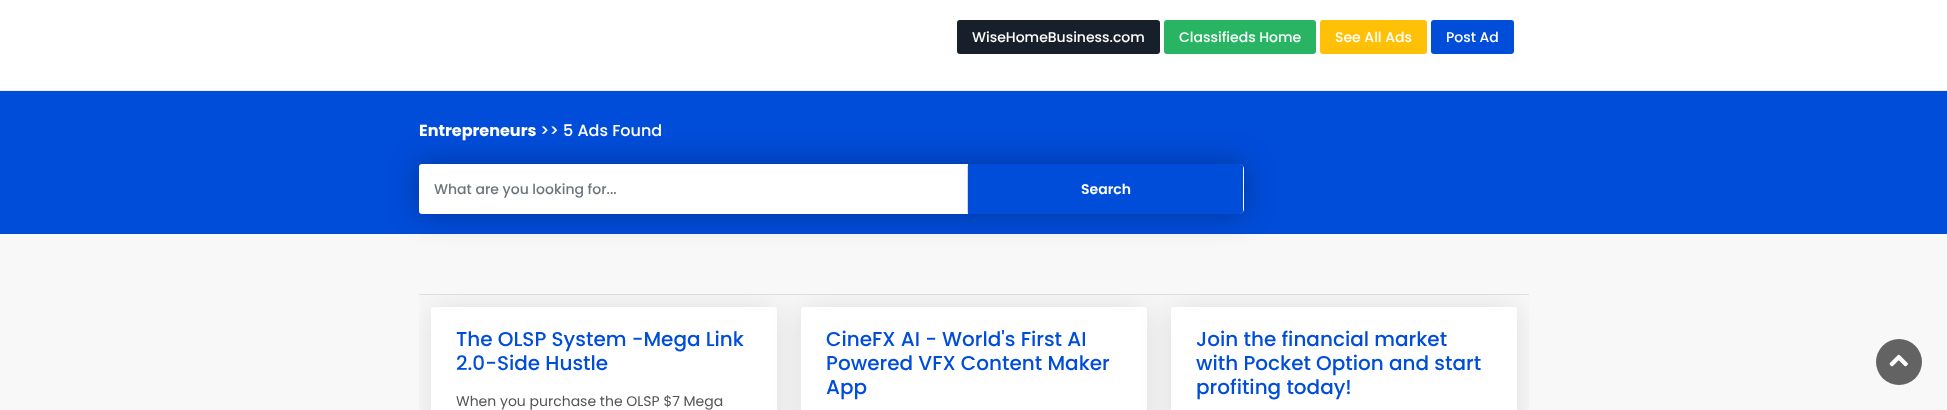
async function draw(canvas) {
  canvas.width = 1947;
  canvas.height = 410;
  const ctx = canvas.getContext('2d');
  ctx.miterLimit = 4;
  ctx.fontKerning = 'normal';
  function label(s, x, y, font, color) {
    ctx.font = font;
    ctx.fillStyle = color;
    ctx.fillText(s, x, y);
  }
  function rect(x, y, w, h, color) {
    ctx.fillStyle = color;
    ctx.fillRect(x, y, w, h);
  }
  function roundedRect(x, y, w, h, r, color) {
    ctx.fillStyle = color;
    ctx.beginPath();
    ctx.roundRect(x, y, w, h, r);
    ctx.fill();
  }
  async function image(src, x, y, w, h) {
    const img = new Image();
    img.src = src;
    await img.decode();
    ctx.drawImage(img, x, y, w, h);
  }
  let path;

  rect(0, 0, 1947, 410, '#f8f8f8');
  rect(0, 0, 1947, 90, '#fff');
  rect(0, 90, 1947, 1, '#ededed');
  roundedRect(957, 20, 203, 34, 3, '#17202a');
  label('WiseHomeBusiness.com', 972, 42, '500 14px Poppins', '#fff');
  roundedRect(1164, 20, 152, 34, 3, '#28b463');
  label('Classifieds Home', 1179, 42, '500 14px Poppins', '#fff');
  roundedRect(1320, 20, 107, 34, 3, '#ffc107');
  label('See All Ads', 1335, 42, '500 14px Poppins', '#fff');
  roundedRect(1431, 20, 83, 34, 3, '#004dda');
  label('Post Ad', 1446, 42, '500 14px Poppins', '#fff');
  rect(0, 91, 1947, 143, '#004dda');
  label('Entrepreneurs', 419, 136, 'bold 16px Poppins', '#fff');
  label('>> 5 Ads Found', 540, 136, '500 16px Poppins', '#fff');
  ctx.fillStyle = '#0000004d';
  ctx.filter = 'blur(15px)';
  ctx.beginPath();
  ctx.roundRect(419, 164, 825, 50, 5);
  ctx.fill();
  ctx.filter = 'none';
  roundedRect(419, 164, 825, 50, 5, '#fff');
  path = new Path2D('M422 164H965C966 164 967 165 967 167V211C967 213 966 214 965 214H422C420 214 419 213 419 211V167C419 165 420 164 422 164Z');
  ctx.fill(path);
  rect(967, 166, 1, 47, '#d2d8dd');
  label('What are you looking for...', 434, 194, '500 14px Poppins', '#6c757d');
  ctx.fillStyle = '#004dda';
  ctx.beginPath();
  ctx.roundRect(968, 164, 275, 50, [0, 3, 3, 0]);
  ctx.fill();
  label('Search', 1081, 194, '600 14px Poppins', '#fff');
  rect(419, 294, 1110, 1, '#dee2e6');
  ctx.save();
  ctx.beginPath();
  ctx.rect(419, 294, 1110, 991);
  ctx.clip();
  ctx.fillStyle = '#0000001a';
  ctx.filter = 'blur(15px)';
  ctx.beginPath();
  ctx.roundRect(431, 307, 346, 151, 3);
  ctx.fill();
  ctx.filter = 'none';
  ctx.restore();
  roundedRect(431, 307, 346, 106, 3, '#fff');
  label('The OLSP System -Mega Link', 456, 346, '500 20px Poppins', '#004dda');
  label('2.0-Side Hustle', 456, 370, '500 20px Poppins', '#004dda');
  label('When you purchase the OLSP $7 Mega', 456, 406, '14px Poppins', '#555');
  ctx.save();
  ctx.beginPath();
  ctx.rect(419, 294, 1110, 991);
  ctx.clip();
  ctx.fillStyle = '#0000001a';
  ctx.filter = 'blur(15px)';
  ctx.beginPath();
  ctx.roundRect(801, 307, 346, 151, 3);
  ctx.fill();
  ctx.filter = 'none';
  ctx.restore();
  roundedRect(801, 307, 346, 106, 3, '#fff');
  label('CineFX AI - World\'s First AI', 826, 346, '500 20px Poppins', '#004dda');
  label('Powered VFX Content Maker', 826, 370, '500 20px Poppins', '#004dda');
  label('App', 826, 394, '500 20px Poppins', '#004dda');
  ctx.save();
  ctx.beginPath();
  ctx.rect(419, 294, 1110, 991);
  ctx.clip();
  ctx.fillStyle = '#0000001a';
  ctx.filter = 'blur(15px)';
  ctx.beginPath();
  ctx.roundRect(1171, 307, 346, 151, 3);
  ctx.fill();
  ctx.filter = 'none';
  ctx.restore();
  roundedRect(1171, 307, 346, 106, 3, '#fff');
  label('Join the financial market', 1196, 346, '500 20px Poppins', '#004dda');
  label('with Pocket Option and start', 1196, 370, '500 20px Poppins', '#004dda');
  label('profiting today!', 1196, 394, '500 20px Poppins', '#004dda');
  ctx.fillStyle = '#636363';
  ctx.beginPath();
  ctx.arc(1899, 362, 23, 0, 2 * Math.PI);
  ctx.fill();
  await image('assets/img1.png', 1889, 354, 19, 13);
}

draw(document.querySelector('canvas'));
